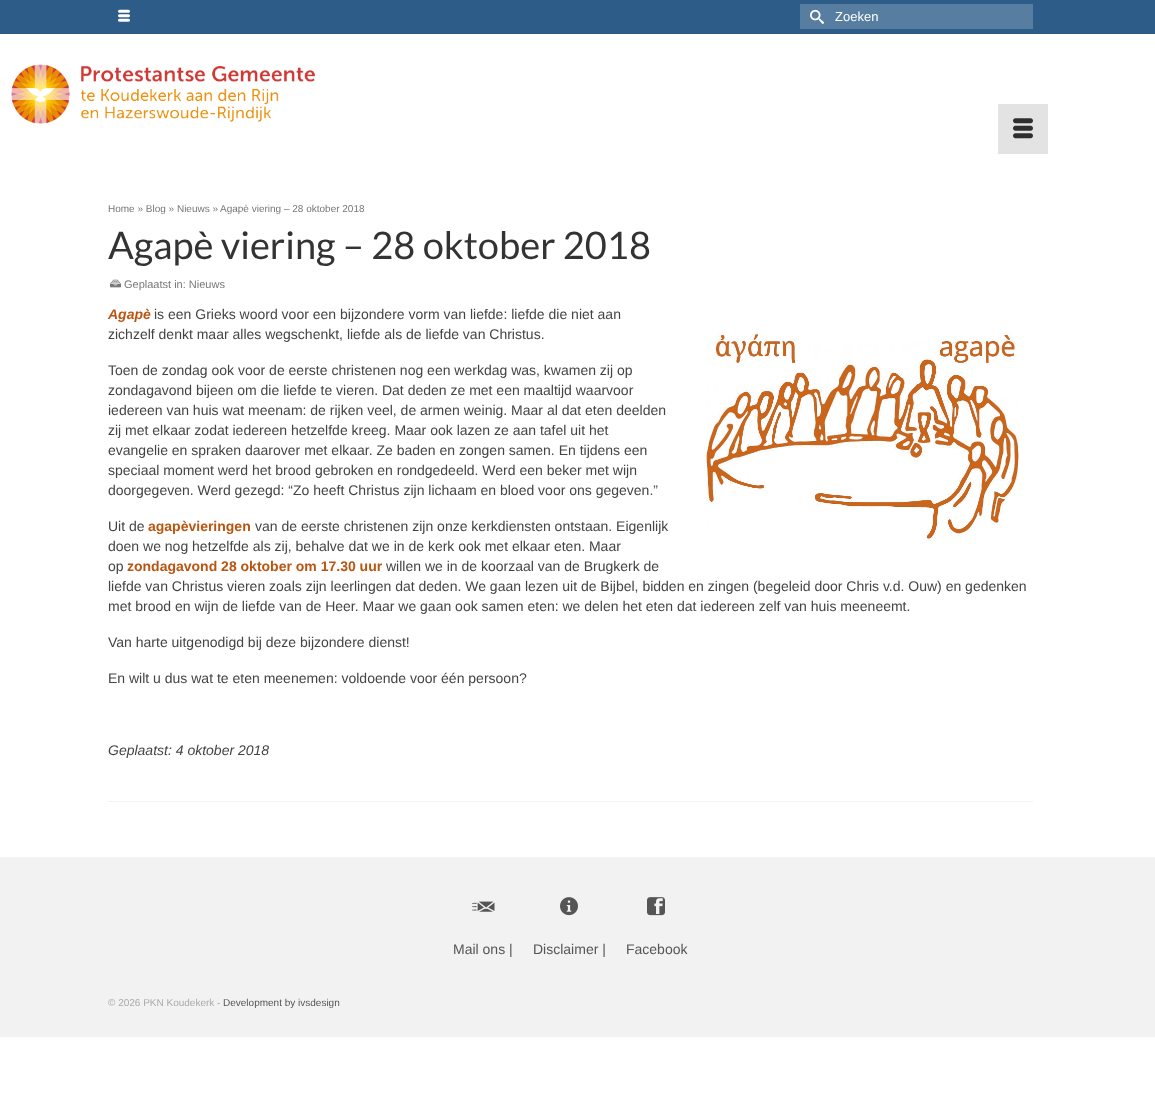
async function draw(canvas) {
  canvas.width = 1155;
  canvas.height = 1118;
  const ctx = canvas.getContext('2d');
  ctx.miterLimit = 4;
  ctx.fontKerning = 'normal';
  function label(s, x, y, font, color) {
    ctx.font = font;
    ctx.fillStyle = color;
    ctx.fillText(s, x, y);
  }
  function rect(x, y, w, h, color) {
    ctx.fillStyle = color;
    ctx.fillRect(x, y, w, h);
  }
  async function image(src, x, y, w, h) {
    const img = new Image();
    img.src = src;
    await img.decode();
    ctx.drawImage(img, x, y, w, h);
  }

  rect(0, 0, 1155, 1118, '#fff');
  rect(0, 0, 1155, 34, '#2d5c88');
  await image('assets/img1.png', 118, 9, 12, 13);
  rect(800, 4, 233, 25, '#577da0');
  await image('assets/img2.png', 810, 9, 14, 15);
  label('Zoeken', 835, 21, '13px Liberation Sans', '#fff');
  await image('assets/img3.png', 11, 64, 304, 60);
  rect(998, 104, 50, 50, '#e3e3e3');
  await image('assets/img4.png', 1013, 118, 20, 21);
  label('Home » Blog » Nieuws »', 108, 212, '10px Liberation Sans', '#777');
  label('Agapè viering – 28 oktober 2018', 220, 212, '10px Liberation Sans', '#777');
  label('Agapè viering – 28 oktober 2018', 108, 259, '38px Lato', '#333');
  await image('assets/img5.png', 110, 279, 11, 9);
  label('Geplaatst in: Nieuws', 124, 288, '11px Liberation Sans', '#777');
  label('Agapè', 108, 319, 'italic bold 14px Liberation Sans', '#ba5511');
  await image('assets/img6.png', 706, 332, 313, 209);
  label('is een Grieks woord voor een bijzondere vorm van liefde: liefde die niet aan', 154, 319, '14px Liberation Sans', '#444');
  label('zichzelf denkt maar alles wegschenkt, liefde als de liefde van Christus.', 108, 339, '14px Liberation Sans', '#444');
  label('Toen de zondag ook voor de eerste christenen nog een werkdag was, kwamen zij op', 108, 375, '14px Liberation Sans', '#444');
  label('zondagavond bijeen om die liefde te vieren. Dat deden ze met een maaltijd waarvoor', 108, 395, '14px Liberation Sans', '#444');
  label('iedereen van huis wat meenam: de rijken veel, de armen weinig. Maar al dat eten deelden', 108, 415, '14px Liberation Sans', '#444');
  label('zij met elkaar zodat iedereen hetzelfde kreeg. Maar ook lazen ze aan tafel uit het', 108, 435, '14px Liberation Sans', '#444');
  label('evangelie en spraken daarover met elkaar. Ze baden en zongen samen. En tijdens een', 108, 455, '14px Liberation Sans', '#444');
  label('speciaal moment werd het brood gebroken en rondgedeeld. Werd een beker met wijn', 108, 475, '14px Liberation Sans', '#444');
  label('doorgegeven. Werd gezegd: “Zo heeft Christus zijn lichaam en bloed voor ons gegeven.”', 108, 495, '14px Liberation Sans', '#444');
  label('Uit de', 108, 531, '14px Liberation Sans', '#444');
  label('agapèvieringen', 148, 531, 'bold 14px Liberation Sans', '#ba5511');
  label('van de eerste christenen zijn onze kerkdiensten ontstaan. Eigenlijk', 255, 531, '14px Liberation Sans', '#444');
  label('doen we nog hetzelfde als zij, behalve dat we in de kerk ook met elkaar eten. Maar', 108, 551, '14px Liberation Sans', '#444');
  label('op', 108, 571, '14px Liberation Sans', '#444');
  label('zondagavond 28 oktober om 17.30 uur', 127, 571, 'bold 14px Liberation Sans', '#ba5511');
  label('willen we in de koorzaal van de Brugkerk de', 386, 571, '14px Liberation Sans', '#444');
  label('liefde van Christus vieren zoals zijn leerlingen dat deden. We gaan lezen uit de Bijbel, bidden en zingen (begeleid door Chris v.d. Ouw) en gedenken', 108, 591, '14px Liberation Sans', '#444');
  label('met brood en wijn de liefde van de Heer. Maar we gaan ook samen eten: we delen het eten dat iedereen zelf van huis meeneemt.', 108, 611, '14px Liberation Sans', '#444');
  label('Van harte uitgenodigd bij deze bijzondere dienst!', 108, 647, '14px Liberation Sans', '#444');
  label('En wilt u dus wat te eten meenemen: voldoende voor één persoon?', 108, 683, '14px Liberation Sans', '#444');
  label('Geplaatst: 4 oktober 2018', 108, 755, 'italic 14px Liberation Sans', '#444');
  rect(108, 801, 925, 1, '#f2f2f2');
  rect(0, 857, 1155, 180, '#f2f2f2');
  await image('assets/img7.png', 472, 901, 23, 11);
  await image('assets/img8.png', 560, 897, 18, 19);
  await image('assets/img9.png', 647, 897, 18, 19);
  label('Mail ons |', 453, 954, '14px Liberation Sans', '#555');
  label('Disclaimer |', 533, 954, '14px Liberation Sans', '#555');
  label('Facebook', 626, 954, '14px Liberation Sans', '#555');
  label('© 2026 PKN Koudekerk -', 108, 1006, '10px Liberation Sans', '#aaa');
  label('Development by ivsdesign', 223, 1006, '10px Liberation Sans', '#555');
}

draw(document.querySelector('canvas'));
